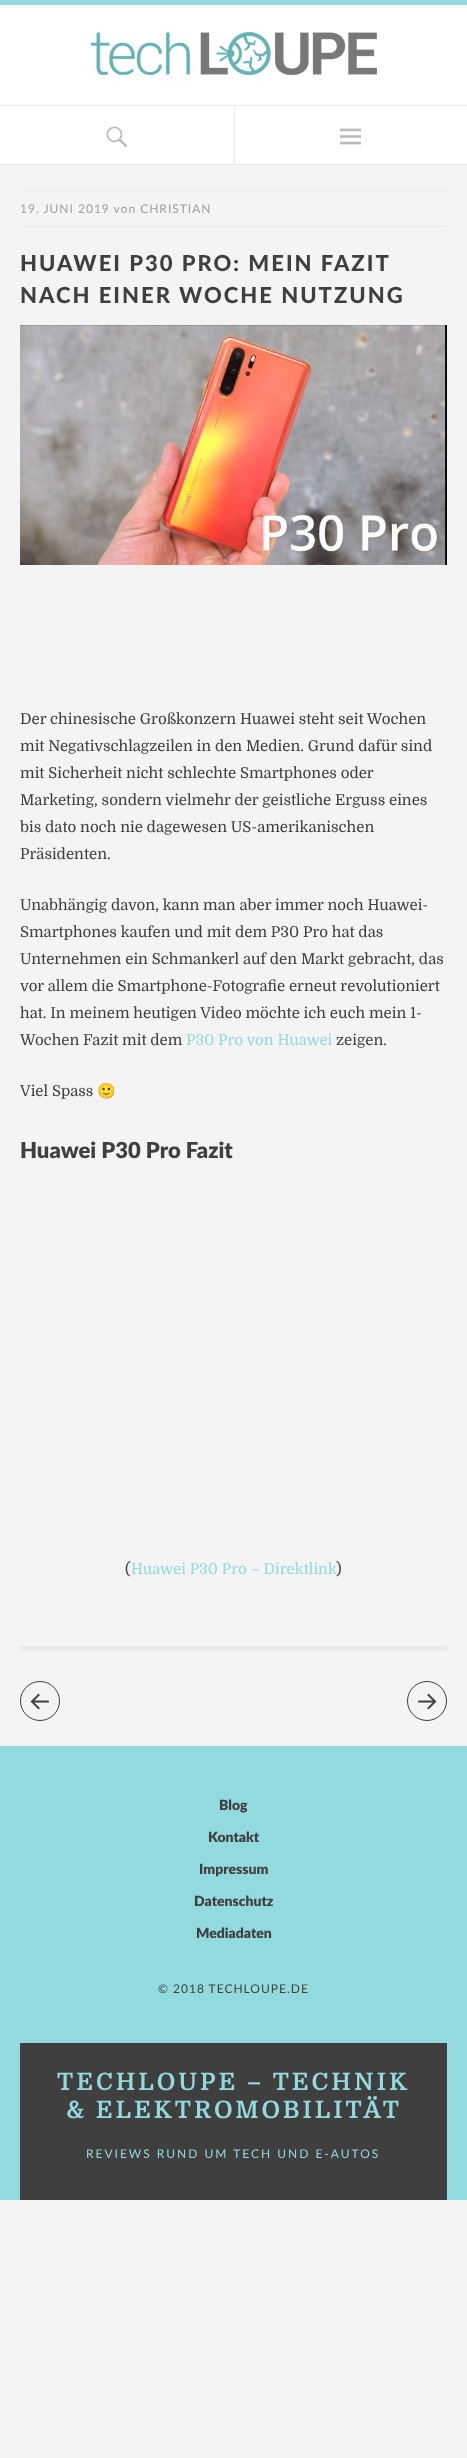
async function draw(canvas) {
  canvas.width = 467;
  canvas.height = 2458;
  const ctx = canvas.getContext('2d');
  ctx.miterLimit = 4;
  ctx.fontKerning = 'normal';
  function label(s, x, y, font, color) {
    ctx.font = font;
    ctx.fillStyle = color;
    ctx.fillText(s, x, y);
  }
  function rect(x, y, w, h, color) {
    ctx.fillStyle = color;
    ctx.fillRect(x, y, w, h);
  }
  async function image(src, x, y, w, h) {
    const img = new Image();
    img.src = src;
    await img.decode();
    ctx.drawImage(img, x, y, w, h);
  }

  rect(0, 0, 467, 2458, '#f4f4f4');
  rect(0, 5, 467, 159, '#fff');
  rect(0, 0, 467, 5, '#92dadd');
  await image('assets/img1.png', 91, 32, 286, 43);
  rect(0, 105, 467, 1, '#eaeaea');
  rect(0, 164, 467, 1, '#eaeaea');
  await image('assets/img2.png', 106, 126, 22, 22);
  rect(234, 105, 1, 60, '#eaeaea');
  await image('assets/img3.png', 340, 128, 21, 17);
  rect(20, 190, 427, 1, '#eaeaea');
  ctx.letterSpacing = '1px';
  label('19. JUNI 2019 von CHRISTIAN', 20, 213, '12px Lato', '#9e9e9e');
  rect(20, 226, 427, 1, '#eaeaea');
  ctx.letterSpacing = '2px';
  label('HUAWEI P30 PRO: MEIN FAZIT', 20, 271, '900 22px Lato', '#3f3f3f');
  label('NACH EINER WOCHE NUTZUNG', 20, 303, '900 22px Lato', '#3f3f3f');
  await image('assets/img4.png', 20, 325, 427, 240);
  ctx.letterSpacing = '0px';
  label('Der chinesische Großkonzern Huawei steht seit Wochen', 20, 724, '15px Domine', '#3f3f3f');
  label('mit Negativschlagzeilen in den Medien. Grund dafür sind', 20, 751, '15px Domine', '#3f3f3f');
  label('mit Sicherheit nicht schlechte Smartphones oder', 20, 778, '15px Domine', '#3f3f3f');
  label('Marketing, sondern vielmehr der geistliche Erguss eines', 20, 805, '15px Domine', '#3f3f3f');
  label('bis dato noch nie dagewesen US-amerikanischen', 20, 832, '15px Domine', '#3f3f3f');
  label('Präsidenten.', 20, 859, '15px Domine', '#3f3f3f');
  label('Unabhängig davon, kann man aber immer noch Huawei-', 20, 910, '15px Domine', '#3f3f3f');
  label('Smartphones kaufen und mit dem P30 Pro hat das', 20, 937, '15px Domine', '#3f3f3f');
  label('Unternehmen ein Schmankerl auf den Markt gebracht, das', 20, 964, '15px Domine', '#3f3f3f');
  label('vor allem die Smartphone-Fotografie erneut revolutioniert', 20, 991, '15px Domine', '#3f3f3f');
  label('hat. In meinem heutigen Video möchte ich euch mein 1-', 20, 1018, '15px Domine', '#3f3f3f');
  label('Wochen Fazit mit dem', 20, 1045, '15px Domine', '#3f3f3f');
  label('P30 Pro von Huawei', 186, 1045, '15px Domine', '#92dadd');
  label('zeigen.', 336, 1045, '15px Domine', '#3f3f3f');
  label('Viel Spass', 20, 1096, '15px Domine', '#3f3f3f');
  label('🙂', 97, 1096, '15px Noto Color Emoji', '#3f3f3f');
  label('Huawei P30 Pro Fazit', 20, 1158, '900 22px "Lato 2"', '#3f3f3f');
  label('(', 125, 1574, '15px Domine', '#3f3f3f');
  label('Huawei P30 Pro – Direktlink', 131, 1574, '15px Domine', '#92dadd');
  label(')', 336, 1574, '15px Domine', '#3f3f3f');
  rect(20, 1646, 427, 5, '#eaeaea');
  ctx.beginPath();
  ctx.arc(40, 1701, 19.5, 0, 2 * Math.PI);
  ctx.strokeStyle = '#3f3f3f';
  ctx.stroke();
  await image('assets/img5.png', 30, 1693, 19, 17);
  ctx.beginPath();
  ctx.arc(427, 1701, 19.5, 0, 2 * Math.PI);
  ctx.stroke();
  await image('assets/img6.png', 418, 1693, 19, 17);
  rect(0, 1746, 467, 454, '#92dadd');
  label('Blog', 219, 1810, '900 14px "Lato 2"', '#3f3f3f');
  label('Kontakt', 208, 1842, '900 14px "Lato 2"', '#3f3f3f');
  label('Impressum', 199, 1874, '900 14px "Lato 2"', '#3f3f3f');
  label('Datenschutz', 194, 1906, '900 14px "Lato 2"', '#3f3f3f');
  label('Mediadaten', 196, 1938, '900 14px "Lato 2"', '#3f3f3f');
  ctx.letterSpacing = '1px';
  label('© 2018 TECHLOUPE.DE', 158, 1993, '12px Lato', '#3f3f3f');
  rect(20, 2043, 427, 157, '#3f3f3f');
  ctx.letterSpacing = '3px';
  label('TECHLOUPE – TECHNIK', 57, 2090, 'bold 24px Domine', '#92dadd');
  label('& ELEKTROMOBILITÄT', 66, 2118, 'bold 24px Domine', '#92dadd');
  ctx.letterSpacing = '2px';
  label('REVIEWS RUND UM TECH UND E-AUTOS', 86, 2158, '12px Lato', '#92dadd');
}

draw(document.querySelector('canvas'));
